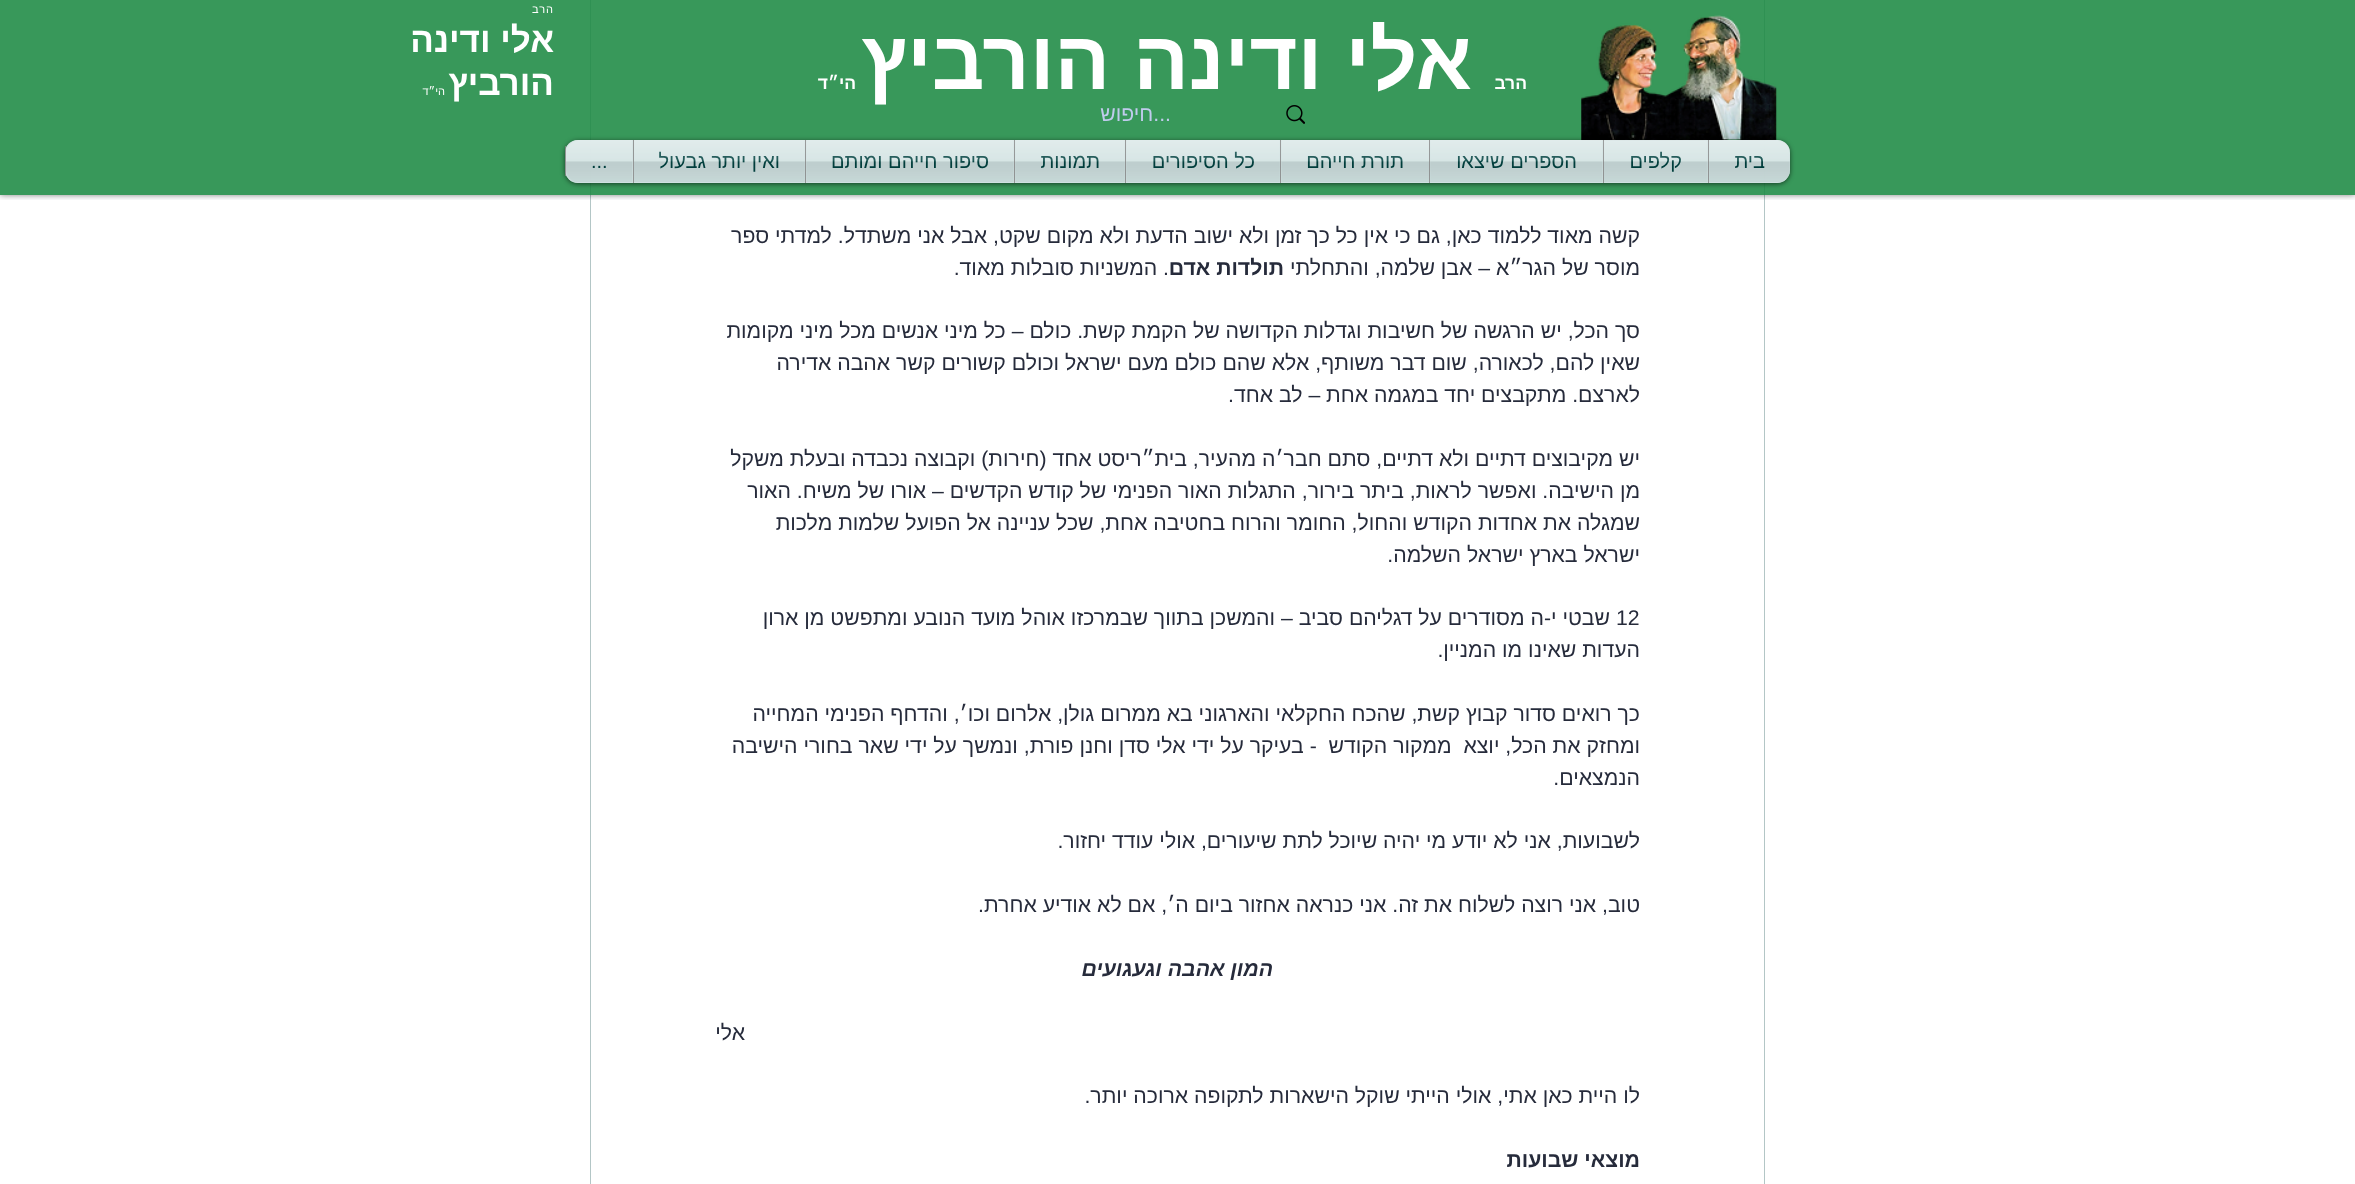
async function draw(canvas) {
  canvas.width = 2355;
  canvas.height = 1184;
  const ctx = canvas.getContext('2d');
  ctx.miterLimit = 4;
  ctx.fontKerning = 'normal';
  function label(s, x, y, font, color) {
    ctx.font = font;
    ctx.fillStyle = color;
    ctx.fillText(s, x, y);
  }
  function rect(x, y, w, h, color) {
    ctx.fillStyle = color;
    ctx.fillRect(x, y, w, h);
  }
  function roundedRect(x, y, w, h, r, color) {
    ctx.fillStyle = color;
    ctx.beginPath();
    ctx.roundRect(x, y, w, h, r);
    ctx.fill();
  }
  async function image(src, x, y, w, h) {
    const img = new Image();
    img.src = src;
    await img.decode();
    ctx.drawImage(img, x, y, w, h);
  }
  let path;

  rect(0, 0, 2355, 1184, '#fff');
  ctx.strokeStyle = '#b3c6c6';
  ctx.strokeRect(590.5, -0.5, 1174, 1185);
  ctx.save();
  ctx.beginPath();
  ctx.rect(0, 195, 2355, 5);
  ctx.clip();
  ctx.fillStyle = '#00000080';
  ctx.filter = 'blur(3px)';
  ctx.beginPath();
  ctx.rect(0, 0, 2355, 195);
  ctx.fill();
  ctx.filter = 'none';
  ctx.restore();
  rect(0, 0, 2355, 195, '#1c8a43e0');
  await image('assets/img1.png', 1581, 15, 196, 126);
  ctx.direction = 'rtl';
  label('הרב', 1527, 89, 'bold 17.5px Liberation Sans', '#fff');
  label('אלי ודינה הורביץ', 1472, 89, 'bold 82.5px Liberation Sans', '#fff');
  label('הי״ד', 856, 89, 'bold 17.5px Liberation Sans', '#fff');
  ctx.letterSpacing = '1px';
  label('הרב', 554, 13, '11px Liberation Sans', '#fff');
  ctx.letterSpacing = '0px';
  label('אלי ודינה', 554, 52, 'bold 35px Liberation Sans', '#fff');
  label('הורביץ', 554, 95, 'bold 35px Liberation Sans', '#fff');
  label('הי״ד', 445, 95, '11px Liberation Sans', '#fff');
  await image('assets/img2.png', 1286, 105, 19, 19);
  label('...חיפוש', 1171, 121, '21.25px Liberation Sans', '#c0cbed');
  ctx.save();
  path = new Path2D('M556 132H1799V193H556ZM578 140H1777C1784 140 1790 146 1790 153V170C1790 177 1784 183 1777 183H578C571 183 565 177 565 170V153C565 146 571 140 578 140Z');
  ctx.clip(path, 'evenodd');
  ctx.fillStyle = '#00000099';
  ctx.filter = 'blur(2.5px)';
  ctx.beginPath();
  ctx.roundRect(565, 141, 1225, 43, 13);
  ctx.fill();
  ctx.filter = 'none';
  ctx.restore();
  roundedRect(565, 140, 1225, 43, 13, '#dde8ebb8');
  await image('assets/img3.png', 565, 140, 1225, 42);
  ctx.beginPath();
  ctx.roundRect(1708, 140, 82, 43, [0, 13, 13, 0]);
  ctx.fill();
  rect(1708, 140, 1, 43, '#858585d1');
  label('בית', 1765, 168, '20px Liberation Sans', '#014240');
  await image('assets/img4.png', 1708, 140, 82, 42);
  rect(1603, 140, 105, 43, '#dde8ebb8');
  rect(1603, 140, 1, 43, '#858585d1');
  label('קלפים', 1682, 168, '20px Liberation Sans', '#014240');
  await image('assets/img5.png', 1603, 140, 105, 42);
  rect(1429, 140, 174, 43, '#dde8ebb8');
  rect(1429, 140, 1, 43, '#858585d1');
  label('הספרים שיצאו', 1577, 168, '20px Liberation Sans', '#014240');
  await image('assets/img6.png', 1429, 140, 174, 42);
  rect(1280, 140, 149, 43, '#dde8ebb8');
  rect(1280, 140, 1, 43, '#858585d1');
  label('תורת חייהם', 1404, 168, '20px Liberation Sans', '#014240');
  await image('assets/img7.png', 1281, 140, 148, 42);
  rect(1125, 140, 155, 43, '#dde8ebb8');
  rect(1125, 140, 1, 43, '#858585d1');
  label('כל הסיפורים', 1255, 168, '20px Liberation Sans', '#014240');
  await image('assets/img8.png', 1126, 140, 155, 42);
  rect(1014, 140, 111, 43, '#dde8ebb8');
  rect(1014, 140, 1, 43, '#858585d1');
  label('תמונות', 1100, 168, '20px Liberation Sans', '#014240');
  await image('assets/img9.png', 1014, 140, 112, 42);
  rect(805, 140, 209, 43, '#dde8ebb8');
  rect(805, 140, 1, 43, '#858585d1');
  label('סיפור חייהם ומותם', 989, 168, '20px Liberation Sans', '#014240');
  await image('assets/img10.png', 806, 140, 208, 42);
  rect(633, 140, 172, 43, '#dde8ebb8');
  rect(633, 140, 1, 43, '#858585d1');
  label('ואין יותר גבעול', 780, 168, '20px Liberation Sans', '#014240');
  await image('assets/img11.png', 634, 140, 172, 42);
  ctx.fillStyle = '#dde8ebb8';
  ctx.beginPath();
  ctx.roundRect(565, 140, 68, 43, [13, 0, 0, 13]);
  ctx.fill();
  rect(565, 146, 1, 30, '#858585d1');
  ctx.direction = 'ltr';
  label('...', 591, 168, '20px Liberation Sans', '#014240');
  await image('assets/img12.png', 566, 140, 67, 42);
  ctx.direction = 'rtl';
  label('קשה מאוד ללמוד כאן, גם כי אין כל כך זמן ולא ישוב הדעת ולא מקום שקט, אבל אני משתדל. למדתי ספר', 1640, 243, '21.25px Liberation Sans', '#262b3b');
  label('מוסר של הגר״א – אבן שלמה, והתחלתי', 1640, 275, '21.25px Liberation Sans', '#262b3b');
  label('תולדות אדם', 1284, 275, 'bold 21.25px Liberation Sans', '#262b3b');
  label('. המשניות סובלות מאוד.', 1169, 275, '21.25px Liberation Sans', '#262b3b');
  label('סך הכל, יש הרגשה של חשיבות וגדלות הקדושה של הקמת קשת. כולם – כל מיני אנשים מכל מיני מקומות', 1640, 338, '21.25px Liberation Sans', '#262b3b');
  label('שאין להם, לכאורה, שום דבר משותף, אלא שהם כולם מעם ישראל וכולם קשורים קשר אהבה אדירה', 1640, 370, '21.25px Liberation Sans', '#262b3b');
  label('לארצם. מתקבצים יחד במגמה אחת – לב אחד.', 1640, 402, '21.25px Liberation Sans', '#262b3b');
  label('יש מקיבוצים דתיים ולא דתיים, סתם חבר׳ה מהעיר, בית״ריסט אחד (חירות) וקבוצה נכבדה ובעלת משקל', 1640, 466, '21.25px Liberation Sans', '#262b3b');
  label('מן הישיבה. ואפשר לראות, ביתר בירור, התגלות האור הפנימי של קודש הקדשים – אורו של משיח. האור', 1640, 498, '21.25px Liberation Sans', '#262b3b');
  label('שמגלה את אחדות הקודש והחול, החומר והרוח בחטיבה אחת, שכל עניינה אל הפועל שלמות מלכות', 1640, 530, '21.25px Liberation Sans', '#262b3b');
  label('ישראל בארץ ישראל השלמה.', 1640, 562, '21.25px Liberation Sans', '#262b3b');
  ctx.direction = 'ltr';
  label('12', 1616, 625, '21.25px Liberation Sans', '#262b3b');
  ctx.direction = 'rtl';
  label('שבטי י-ה מסודרים על דגליהם סביב – והמשכן בתווך שבמרכזו אוהל מועד הנובע ומתפשט מן ארון', 1610, 625, '21.25px Liberation Sans', '#262b3b');
  label('העדות שאינו מו המניין.', 1640, 657, '21.25px Liberation Sans', '#262b3b');
  label('כך רואים סדור קבוץ קשת, שהכח החקלאי והארגוני בא ממרום גולן, אלרום וכו׳, והדחף הפנימי המחייה', 1640, 721, '21.25px Liberation Sans', '#262b3b');
  label('ומחזק את הכל, יוצא  ממקור הקודש  - בעיקר על ידי אלי סדן וחנן פורת, ונמשך על ידי שאר בחורי הישיבה', 1640, 753, '21.25px Liberation Sans', '#262b3b');
  label('הנמצאים.', 1640, 785, '21.25px Liberation Sans', '#262b3b');
  label('לשבועות, אני לא יודע מי יהיה שיוכל לתת שיעורים, אולי עודד יחזור.', 1640, 848, '21.25px Liberation Sans', '#262b3b');
  label('טוב, אני רוצה לשלוח את זה. אני כנראה אחזור ביום ה׳, אם לא אודיע אחרת.', 1640, 912, '21.25px Liberation Sans', '#262b3b');
  label('המון אהבה וגעגועים', 1273, 976, 'italic bold 21.25px Liberation Sans', '#262b3b');
  label('אלי', 745, 1040, '21.25px Liberation Sans', '#262b3b');
  label('לו היית כאן אתי, אולי הייתי שוקל הישארות לתקופה ארוכה יותר.', 1640, 1103, '21.25px Liberation Sans', '#262b3b');
  label('מוצאי שבועות', 1640, 1167, 'bold 21.25px Liberation Sans', '#262b3b');
}

draw(document.querySelector('canvas'));
